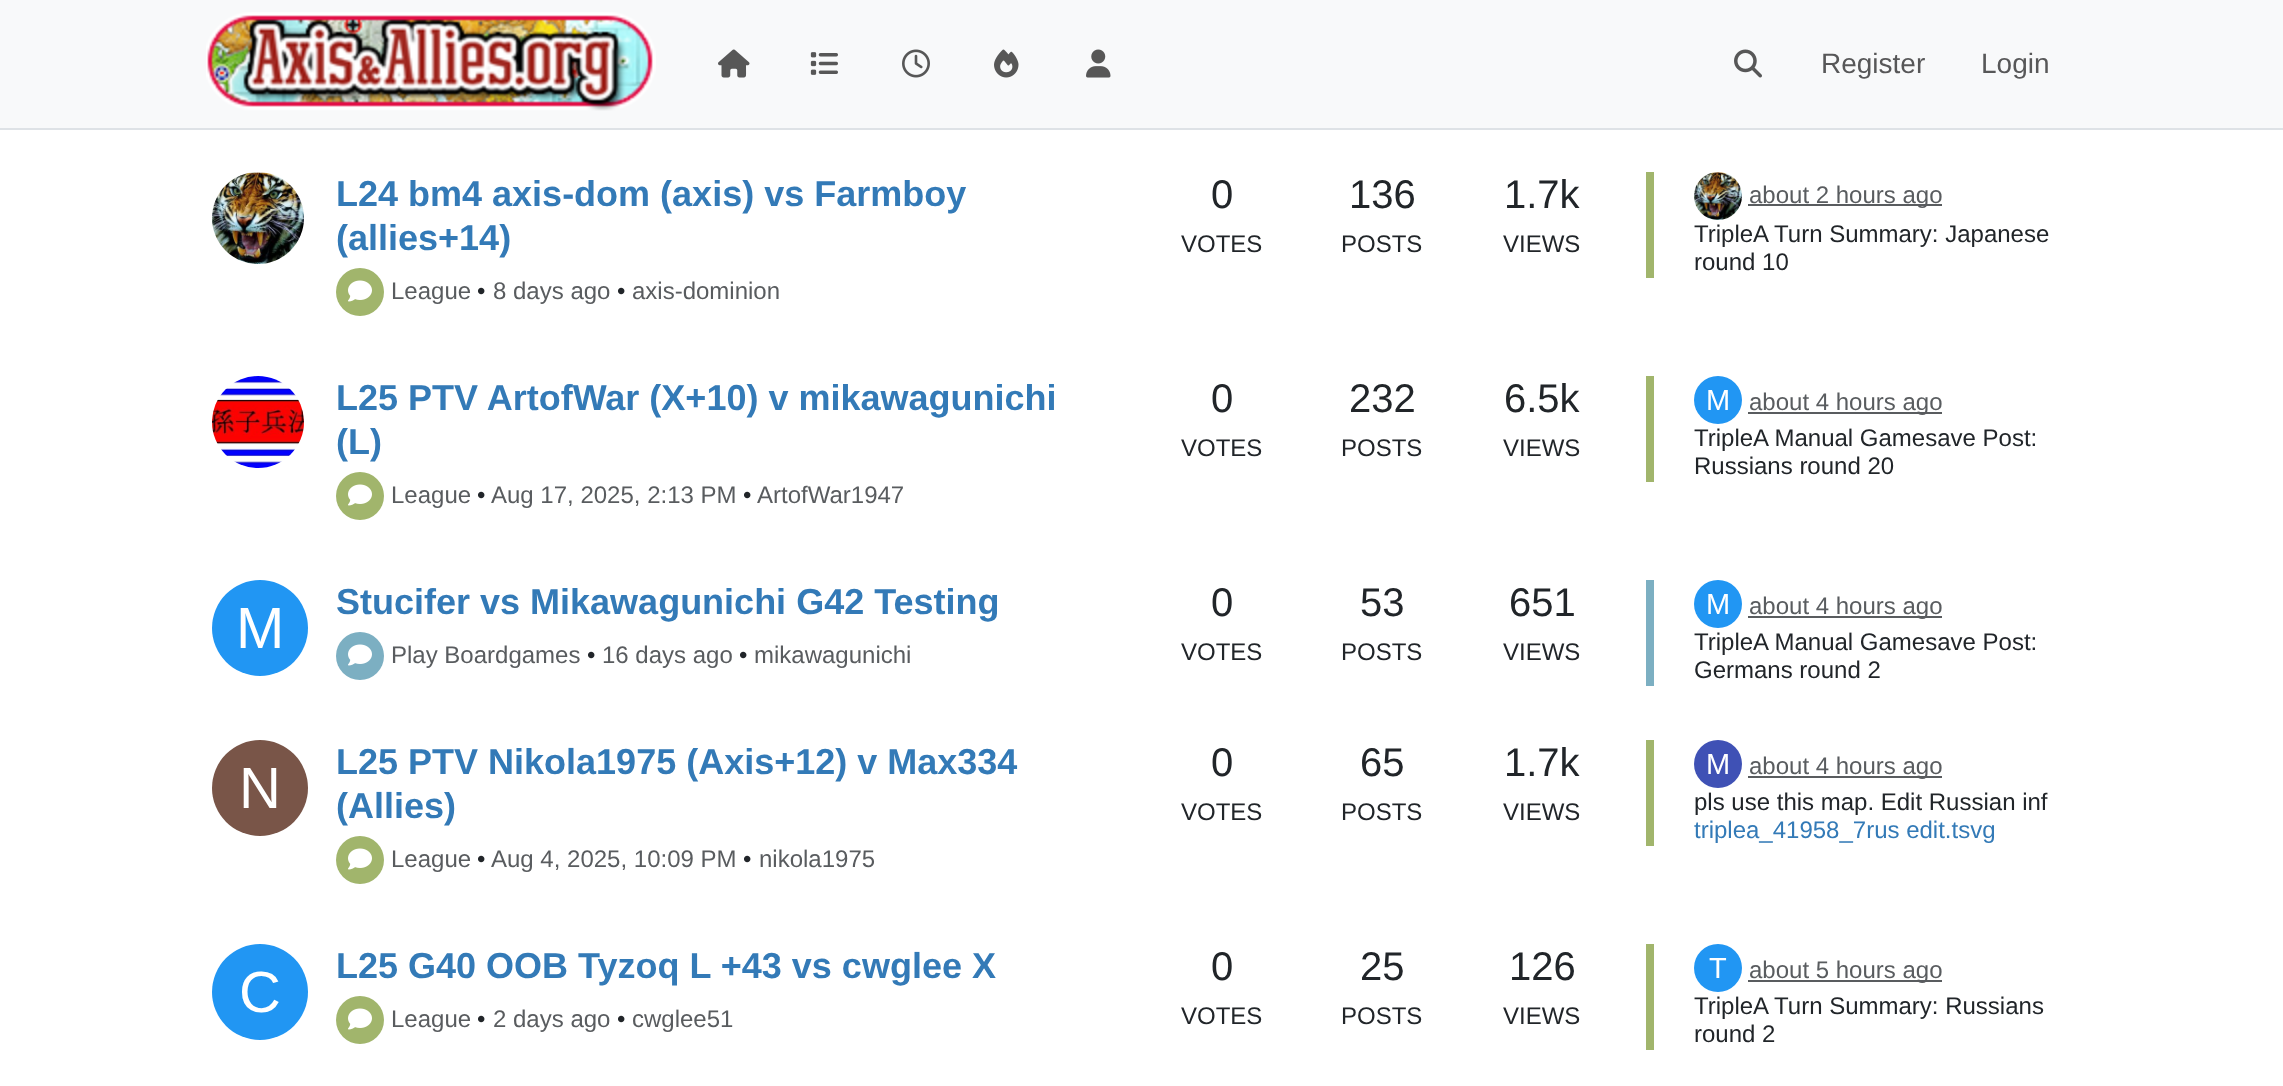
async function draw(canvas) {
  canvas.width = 2283;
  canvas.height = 1086;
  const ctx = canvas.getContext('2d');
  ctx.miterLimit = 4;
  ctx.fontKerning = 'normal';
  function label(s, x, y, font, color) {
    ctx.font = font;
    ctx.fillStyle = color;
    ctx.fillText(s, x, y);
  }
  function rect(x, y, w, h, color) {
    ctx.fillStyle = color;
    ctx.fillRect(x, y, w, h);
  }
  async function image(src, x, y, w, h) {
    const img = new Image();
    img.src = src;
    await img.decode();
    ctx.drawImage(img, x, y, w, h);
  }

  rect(0, 0, 2283, 1086, '#fff');
  rect(0, 0, 2283, 128, '#f8f9fa');
  rect(0, 128, 2283, 2, '#dee2e6');
  await image('assets/img1.png', 206, 12, 450, 99);
  await image('assets/img2.png', 718, 49, 32, 29);
  await image('assets/img3.png', 810, 52, 28, 23);
  await image('assets/img4.png', 902, 49, 28, 29);
  await image('assets/img5.png', 994, 49, 25, 29);
  await image('assets/img6.png', 1086, 49, 25, 29);
  await image('assets/img7.png', 1734, 49, 28, 29);
  label('Register', 1821, 73, '28px Liberation Sans', '#575758');
  label('Login', 1981, 73, '28px Liberation Sans', '#575758');
  await image('assets/img8.png', 212, 172, 92, 92);
  label('L24 bm4 axis-dom (axis) vs Farmboy', 336, 206, 'bold 36px Liberation Sans', '#337ab7');
  label('(allies+14)', 336, 250, 'bold 36px Liberation Sans', '#337ab7');
  ctx.fillStyle = '#a1b56c';
  ctx.beginPath();
  ctx.arc(360, 292, 24, 0, 2 * Math.PI);
  ctx.fill();
  await image('assets/img9.png', 348, 280, 24, 22);
  label('League', 391, 299, '24px Liberation Sans', '#595c5f');
  label('•', 477, 299, '24px Liberation Sans', '#212529');
  label('8 days ago', 493, 299, '24px Liberation Sans', '#595c5f');
  label('•', 617, 299, '24px Liberation Sans', '#212529');
  label('axis-dominion', 632, 299, '24px Liberation Sans', '#595c5f');
  label('0', 1211, 208, '40px Liberation Sans', '#212529');
  label('VOTES', 1181, 252, '24px Liberation Sans', '#212529');
  label('136', 1349, 208, '40px Liberation Sans', '#212529');
  label('POSTS', 1341, 252, '24px Liberation Sans', '#212529');
  label('1.7k', 1504, 208, '40px Liberation Sans', '#212529');
  label('VIEWS', 1503, 252, '24px Liberation Sans', '#212529');
  rect(1646, 172, 8, 106, '#a1b56c');
  await image('assets/img10.png', 1694, 172, 48, 48);
  rect(1748, 204, 194, 2, '#595c5f');
  label('about 2 hours ago', 1749, 203, '24px Liberation Sans', '#595c5f');
  label('TripleA Turn Summary: Japanese', 1694, 242, '24px Liberation Sans', '#212529');
  label('round 10', 1694, 270, '24px Liberation Sans', '#212529');
  await image('assets/img11.png', 212, 376, 92, 92);
  label('L25 PTV ArtofWar (X+10) v mikawagunichi', 336, 410, 'bold 36px Liberation Sans', '#337ab7');
  label('(L)', 336, 454, 'bold 36px Liberation Sans', '#337ab7');
  ctx.fillStyle = '#a1b56c';
  ctx.beginPath();
  ctx.arc(360, 496, 24, 0, 2 * Math.PI);
  ctx.fill();
  await image('assets/img9.png', 348, 484, 24, 22);
  label('League', 391, 503, '24px Liberation Sans', '#595c5f');
  label('•', 477, 503, '24px Liberation Sans', '#212529');
  label('Aug 17, 2025, 2:13 PM', 491, 503, '24px Liberation Sans', '#595c5f');
  label('•', 743, 503, '24px Liberation Sans', '#212529');
  label('ArtofWar1947', 757, 503, '24px Liberation Sans', '#595c5f');
  label('0', 1211, 412, '40px Liberation Sans', '#212529');
  label('VOTES', 1181, 456, '24px Liberation Sans', '#212529');
  label('232', 1349, 412, '40px Liberation Sans', '#212529');
  label('POSTS', 1341, 456, '24px Liberation Sans', '#212529');
  label('6.5k', 1504, 412, '40px Liberation Sans', '#212529');
  label('VIEWS', 1503, 456, '24px Liberation Sans', '#212529');
  rect(1646, 376, 8, 106, '#a1b56c');
  ctx.fillStyle = '#2196f3';
  ctx.beginPath();
  ctx.arc(1718, 400, 24, 0, 2 * Math.PI);
  ctx.fill();
  label('M', 1706, 410, '29px Liberation Sans', '#fff');
  rect(1748, 412, 194, 2, '#595c5f');
  label('about 4 hours ago', 1749, 410, '24px Liberation Sans', '#595c5f');
  label('TripleA Manual Gamesave Post:', 1694, 446, '24px Liberation Sans', '#212529');
  label('Russians round 20', 1694, 474, '24px Liberation Sans', '#212529');
  label('Stucifer vs Mikawagunichi G42 Testing', 336, 614, 'bold 36px Liberation Sans', '#337ab7');
  ctx.fillStyle = '#2196f3';
  ctx.beginPath();
  ctx.arc(260, 628, 48, 0, 2 * Math.PI);
  ctx.fill();
  label('M', 236, 648, '58px Liberation Sans', '#fff');
  ctx.fillStyle = '#7cafc2';
  ctx.beginPath();
  ctx.arc(360, 656, 24, 0, 2 * Math.PI);
  ctx.fill();
  await image('assets/img12.png', 348, 644, 24, 22);
  label('Play Boardgames', 391, 663, '24px Liberation Sans', '#595c5f');
  label('•', 587, 663, '24px Liberation Sans', '#212529');
  label('16 days ago', 602, 663, '24px Liberation Sans', '#595c5f');
  label('•', 739, 663, '24px Liberation Sans', '#212529');
  label('mikawagunichi', 754, 663, '24px Liberation Sans', '#595c5f');
  label('0', 1211, 616, '40px Liberation Sans', '#212529');
  label('VOTES', 1181, 660, '24px Liberation Sans', '#212529');
  label('53', 1360, 616, '40px Liberation Sans', '#212529');
  label('POSTS', 1341, 660, '24px Liberation Sans', '#212529');
  label('651', 1509, 616, '40px Liberation Sans', '#212529');
  label('VIEWS', 1503, 660, '24px Liberation Sans', '#212529');
  rect(1646, 580, 8, 106, '#7cafc2');
  ctx.fillStyle = '#2196f3';
  ctx.beginPath();
  ctx.arc(1718, 604, 24, 0, 2 * Math.PI);
  ctx.fill();
  label('M', 1706, 614, '29px Liberation Sans', '#fff');
  rect(1748, 616, 194, 2, '#595c5f');
  label('about 4 hours ago', 1749, 614, '24px Liberation Sans', '#595c5f');
  label('TripleA Manual Gamesave Post:', 1694, 650, '24px Liberation Sans', '#212529');
  label('Germans round 2', 1694, 678, '24px Liberation Sans', '#212529');
  ctx.fillStyle = '#795548';
  ctx.beginPath();
  ctx.arc(260, 788, 48, 0, 2 * Math.PI);
  ctx.fill();
  label('N', 239, 808, '58px Liberation Sans', '#fff');
  label('L25 PTV Nikola1975 (Axis+12) v Max334', 336, 774, 'bold 36px Liberation Sans', '#337ab7');
  label('(Allies)', 336, 818, 'bold 36px Liberation Sans', '#337ab7');
  ctx.fillStyle = '#a1b56c';
  ctx.beginPath();
  ctx.arc(360, 860, 24, 0, 2 * Math.PI);
  ctx.fill();
  await image('assets/img9.png', 348, 848, 24, 22);
  label('League', 391, 867, '24px Liberation Sans', '#595c5f');
  label('•', 477, 867, '24px Liberation Sans', '#212529');
  label('Aug 4, 2025, 10:09 PM', 491, 867, '24px Liberation Sans', '#595c5f');
  label('•', 743, 867, '24px Liberation Sans', '#212529');
  label('nikola1975', 759, 867, '24px Liberation Sans', '#595c5f');
  label('0', 1211, 776, '40px Liberation Sans', '#212529');
  label('VOTES', 1181, 820, '24px Liberation Sans', '#212529');
  label('65', 1360, 776, '40px Liberation Sans', '#212529');
  label('POSTS', 1341, 820, '24px Liberation Sans', '#212529');
  label('1.7k', 1504, 776, '40px Liberation Sans', '#212529');
  label('VIEWS', 1503, 820, '24px Liberation Sans', '#212529');
  rect(1646, 740, 8, 106, '#a1b56c');
  ctx.fillStyle = '#3f51b5';
  ctx.beginPath();
  ctx.arc(1718, 764, 24, 0, 2 * Math.PI);
  ctx.fill();
  label('M', 1706, 774, '29px Liberation Sans', '#fff');
  rect(1748, 776, 194, 2, '#595c5f');
  label('about 4 hours ago', 1749, 774, '24px Liberation Sans', '#595c5f');
  label('pls use this map. Edit Russian inf', 1694, 810, '24px Liberation Sans', '#212529');
  label('triplea_41958_7rus edit.tsvg', 1694, 838, '24px Liberation Sans', '#337ab7');
  ctx.fillStyle = '#2196f3';
  ctx.beginPath();
  ctx.arc(260, 992, 48, 0, 2 * Math.PI);
  ctx.fill();
  label('C', 239, 1012, '58px Liberation Sans', '#fff');
  label('L25 G40 OOB Tyzoq L +43 vs cwglee X', 336, 978, 'bold 36px Liberation Sans', '#337ab7');
  ctx.fillStyle = '#a1b56c';
  ctx.beginPath();
  ctx.arc(360, 1020, 24, 0, 2 * Math.PI);
  ctx.fill();
  await image('assets/img9.png', 348, 1008, 24, 22);
  label('League', 391, 1027, '24px Liberation Sans', '#595c5f');
  label('•', 477, 1027, '24px Liberation Sans', '#212529');
  label('2 days ago', 493, 1027, '24px Liberation Sans', '#595c5f');
  label('•', 617, 1027, '24px Liberation Sans', '#212529');
  label('cwglee51', 632, 1027, '24px Liberation Sans', '#595c5f');
  label('0', 1211, 980, '40px Liberation Sans', '#212529');
  label('VOTES', 1181, 1024, '24px Liberation Sans', '#212529');
  label('25', 1360, 980, '40px Liberation Sans', '#212529');
  label('POSTS', 1341, 1024, '24px Liberation Sans', '#212529');
  label('126', 1509, 980, '40px Liberation Sans', '#212529');
  label('VIEWS', 1503, 1024, '24px Liberation Sans', '#212529');
  rect(1646, 944, 8, 106, '#a1b56c');
  ctx.fillStyle = '#2196f3';
  ctx.beginPath();
  ctx.arc(1718, 968, 24, 0, 2 * Math.PI);
  ctx.fill();
  label('T', 1709, 978, '29px Liberation Sans', '#fff');
  rect(1748, 980, 194, 2, '#595c5f');
  label('about 5 hours ago', 1749, 978, '24px Liberation Sans', '#595c5f');
  label('TripleA Turn Summary: Russians', 1694, 1014, '24px Liberation Sans', '#212529');
  label('round 2', 1694, 1042, '24px Liberation Sans', '#212529');
}

draw(document.querySelector('canvas'));
